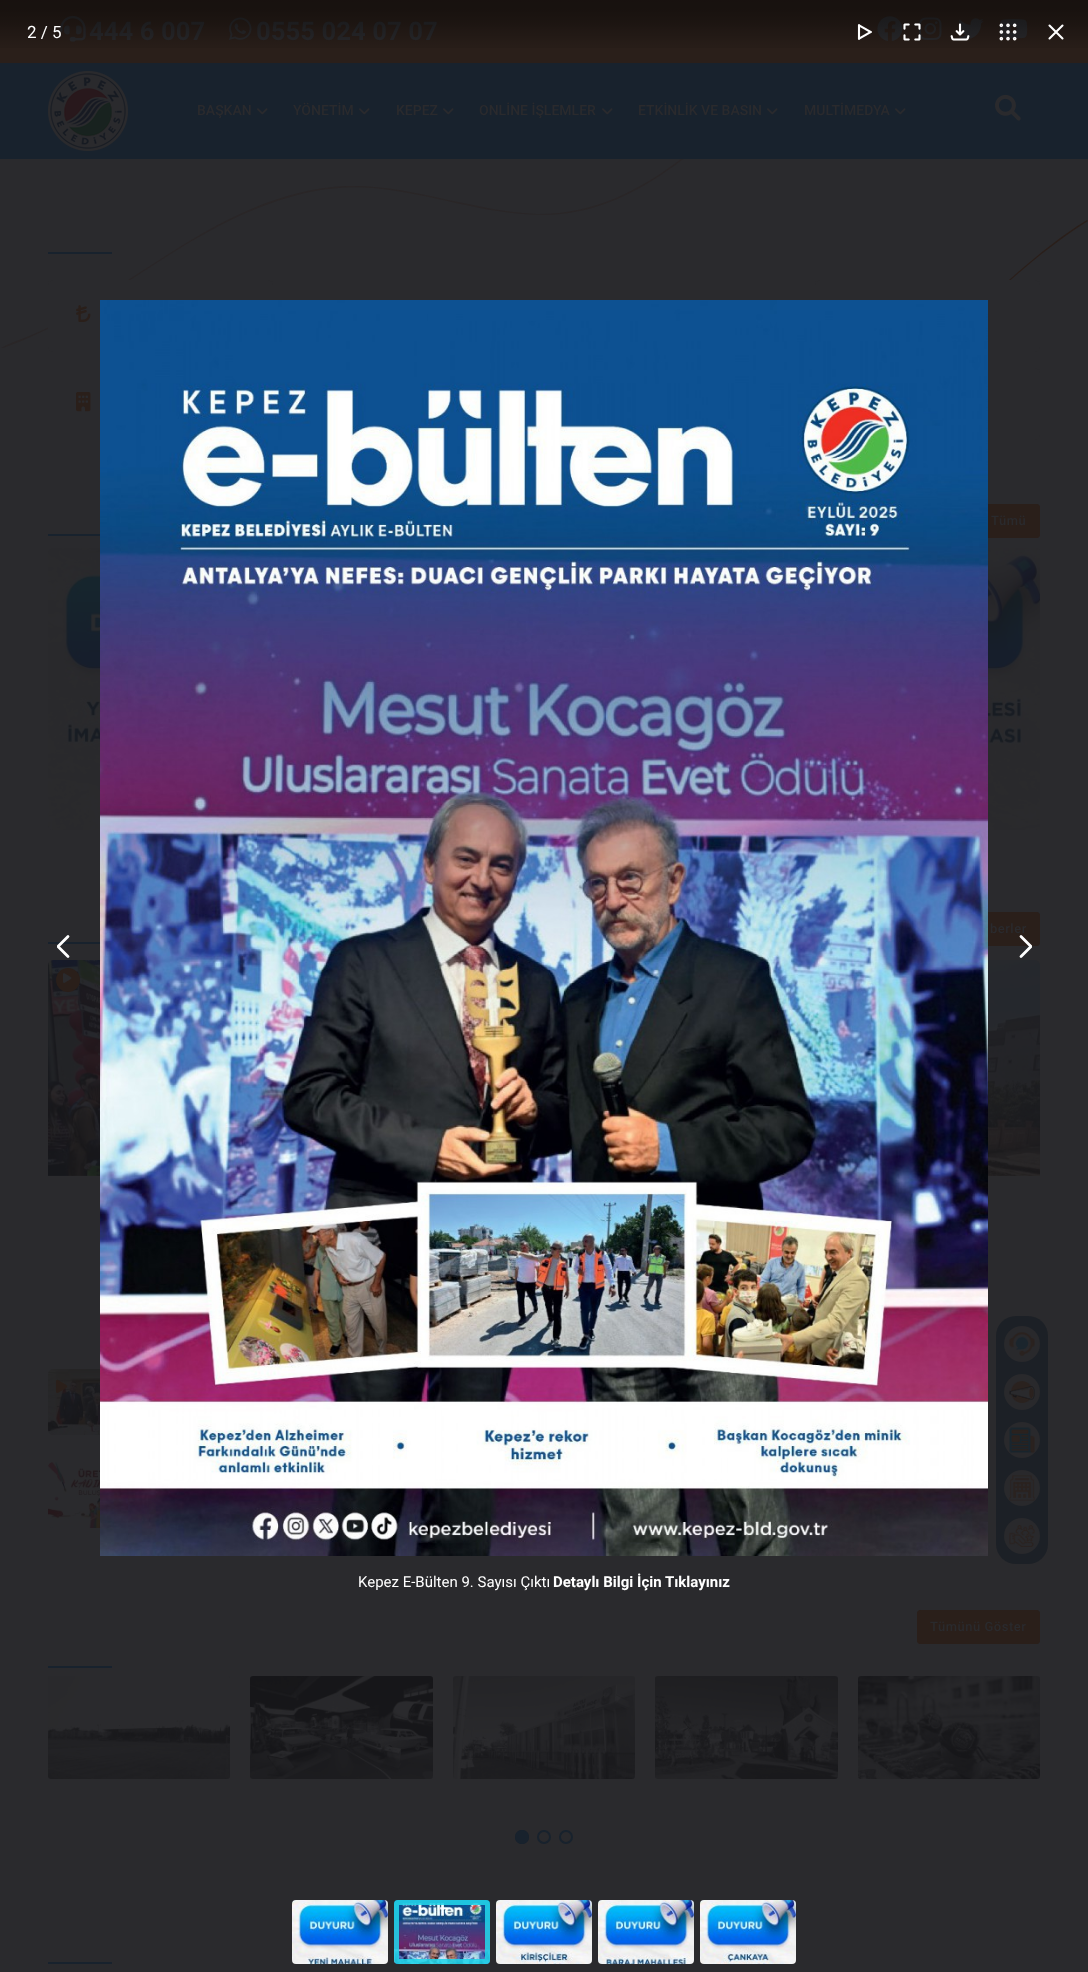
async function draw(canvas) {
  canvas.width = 1088;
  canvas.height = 1972;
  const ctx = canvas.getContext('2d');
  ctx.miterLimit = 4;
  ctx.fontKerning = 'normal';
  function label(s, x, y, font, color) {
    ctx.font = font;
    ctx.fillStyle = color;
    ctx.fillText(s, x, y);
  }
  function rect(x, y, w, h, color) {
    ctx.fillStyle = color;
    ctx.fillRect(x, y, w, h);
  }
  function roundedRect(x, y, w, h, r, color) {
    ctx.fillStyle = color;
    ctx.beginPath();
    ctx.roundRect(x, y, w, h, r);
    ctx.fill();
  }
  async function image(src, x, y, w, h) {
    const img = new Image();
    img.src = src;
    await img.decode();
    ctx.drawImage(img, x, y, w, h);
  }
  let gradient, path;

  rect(0, 0, 1088, 1972, '#2a2a2d');
  rect(0, 0, 1088, 63, '#2a1f1a');
  await image('assets/img1.png', 60, 15, 26, 27);
  label('444 6 007', 89, 40, 'bold 25.75px Roboto', '#2a2a2d');
  await image('assets/img2.png', 229, 17, 23, 23);
  label('0555 024 07 07', 256, 40, 'bold 25.75px Roboto', '#2a2a2d');
  await image('assets/img3.png', 877, 16, 26, 25);
  await image('assets/img4.png', 919, 17, 23, 23);
  await image('assets/img5.png', 958, 18, 26, 22);
  await image('assets/img6.png', 999, 19, 29, 20);
  gradient = ctx.createLinearGradient(544, 64, 544, 0);
  gradient.addColorStop(0, '#00000000');
  gradient.addColorStop(0.08, '#00000003');
  gradient.addColorStop(0.15, '#00000005');
  gradient.addColorStop(0.23, '#0000000d');
  gradient.addColorStop(0.29, '#00000014');
  gradient.addColorStop(0.35, '#0000001c');
  gradient.addColorStop(0.41, '#00000029');
  gradient.addColorStop(0.47, '#00000033');
  gradient.addColorStop(0.53, '#0000003d');
  gradient.addColorStop(0.59, '#0000004a');
  gradient.addColorStop(0.65, '#00000054');
  gradient.addColorStop(0.71, '#0000005c');
  gradient.addColorStop(0.78, '#00000063');
  gradient.addColorStop(0.84, '#0000006b');
  gradient.addColorStop(0.92, '#0000006e');
  gradient.addColorStop(1, '#00000070');
  ctx.fillStyle = gradient;
  ctx.fillRect(0, 0, 1088, 48);
  label('2 / 5', 27, 38, '17px Roboto', '#fff');
  await image('assets/img7.png', 857, 24, 15, 16);
  await image('assets/img8.png', 903, 23, 18, 18);
  await image('assets/img9.png', 950, 23, 20, 18);
  await image('assets/img10.png', 999, 23, 18, 18);
  path = new Path2D('M1062.5 38.5L1049.5 25.5M1062.5 25.5L1049.5 38.5');
  ctx.strokeStyle = '#fff';
  ctx.lineWidth = 2.1;
  ctx.lineCap = 'round';
  ctx.lineJoin = 'bevel';
  ctx.stroke(path);
  rect(48, 942, 52, 2, '#18222d');
  path = new Path2D('M68 936.5L58 946.5L68 956.5');
  ctx.lineWidth = 2.8;
  ctx.stroke(path);
  ctx.fillStyle = '#2a1f1a';
  ctx.beginPath();
  ctx.roundRect(928.5, 912.5, 111, 33, 2.5);
  ctx.fill();
  ctx.strokeStyle = '#2a1f1a';
  ctx.lineWidth = 1;
  ctx.lineJoin = 'miter';
  ctx.stroke();
  path = new Path2D('M1021 936.5L1031 946.5L1021 956.5');
  ctx.strokeStyle = '#fff';
  ctx.lineWidth = 2.8;
  ctx.lineJoin = 'bevel';
  ctx.stroke(path);
  path = new Path2D('M1018 272C955 327 893 388 803 387C773 386 744 379 714 373C673 364 633 355 591 361C496 374 422 440 342 485C326 495 310 503 293 510C286 513 273 517 266 522C367 488 442 407 543 374C575 363 607 358 640 361C714 368 784 402 858 381C925 362 975 310 1027 266C1046 250 1067 234 1088 221L1087 220C1062 235 1039 254 1018 272Z');
  ctx.fill(path);
  ctx.save();
  ctx.beginPath();
  ctx.rect(0, 159, 822, 189);
  ctx.clip();
  ctx.fillStyle = '#2a2627';
  path = new Path2D('M752 99C689 154 627 215 537 214C507 213 478 206 448 200C407 191 367 182 325 188C230 201 156 267 76 312C60 322 44 330 27 337C20 340 7 344 0 349C101 315 176 234 277 201C309 190 341 185 374 188C448 195 518 229 592 208C659 189 709 137 761 93C780 77 801 61 822 48L821 47C796 62 773 81 752 99Z');
  ctx.fill(path);
  ctx.restore();
  roundedRect(48, 280, 225, 72, 5, '#2a2a2d');
  roundedRect(815, 280, 225, 72, 5, '#2a2a2d');
  roundedRect(815, 368, 225, 72, 5, '#2a2a2d');
  ctx.fillStyle = '#2a1f1a';
  ctx.beginPath();
  ctx.roundRect(978.5, 504.5, 61, 33, 2.5);
  ctx.fill();
  ctx.strokeStyle = '#2a1f1a';
  ctx.lineWidth = 1;
  ctx.lineJoin = 'miter';
  ctx.stroke();
  await image('assets/img11.png', 100, 300, 888, 1256);
  label('Kepez E-Bülten 9. Sayısı Çıktı', 358, 1587, '15px Roboto', '#fff');
  label('Detaylı Bilgi İçin Tıklayınız', 553, 1587, 'bold 15px Roboto', '#fff');
  await image('assets/img12.png', 292, 1900, 96, 64);
  await image('assets/img13.png', 394, 1900, 96, 64);
  ctx.beginPath();
  ctx.roundRect(396.5, 1902.5, 91, 59, 1.5);
  ctx.strokeStyle = '#22d5e9e0';
  ctx.lineWidth = 5;
  ctx.stroke();
  await image('assets/img14.png', 496, 1900, 96, 64);
  await image('assets/img15.png', 598, 1900, 96, 64);
  await image('assets/img16.png', 700, 1900, 96, 64);
  rect(0, 63, 1088, 96, '#18222d');
  await image('assets/img17.png', 48, 71, 80, 80);
  label('BAŞKAN', 197, 115, '500 14px Roboto', '#2a2a2d');
  await image('assets/img18.png', 257, 108, 11, 7);
  label('YÖNETİM', 293, 115, '500 14px Roboto', '#2a2a2d');
  await image('assets/img18.png', 359, 108, 11, 7);
  label('KEPEZ', 396, 115, '500 14px Roboto', '#2a2a2d');
  await image('assets/img18.png', 443, 108, 11, 7);
  label('ONLİNE İŞLEMLER', 479, 115, '500 14px Roboto', '#2a2a2d');
  await image('assets/img18.png', 602, 108, 11, 7);
  label('ETKİNLİK VE BASIN', 638, 115, '500 14px Roboto', '#2a2a2d');
  await image('assets/img18.png', 767, 108, 11, 7);
  label('MULTİMEDYA', 804, 115, '500 14px Roboto', '#2a2a2d');
  await image('assets/img18.png', 895, 108, 11, 7);
  await image('assets/img19.png', 995, 94, 26, 27);
  rect(48, 252, 64, 2, '#18222d');
  await image('assets/img20.png', 76, 305, 15, 17);
  await image('assets/img21.png', 76, 392, 15, 20);
  ctx.letterSpacing = '0.5px';
  label('Tümü', 991, 525, '500 13px Roboto', '#2a2a2d');
  rect(48, 534, 52, 2, '#18222d');
  await image('assets/img22.png', 48, 548, 52, 282);
  await image('assets/img23.png', 988, 548, 52, 282);
  label('berler', 990, 933, '500 13px Roboto', '#2a2a2d');
  await image('assets/img24.png', 48, 960, 52, 216);
  ctx.fillStyle = '#2a1f1a';
  ctx.beginPath();
  ctx.arc(68, 980, 12, 0, 2 * Math.PI);
  ctx.fill();
  await image('assets/img25.png', 63, 973, 9, 10);
  await image('assets/img26.png', 988, 960, 52, 216);
  await image('assets/img27.png', 48, 1369, 52, 66);
  await image('assets/img28.png', 56, 1379, 12, 14);
  await image('assets/img29.png', 48, 1462, 52, 66);
  roundedRect(996, 1316, 52, 248, 20, '#171c23b3');
  ctx.fillStyle = '#29292c';
  ctx.beginPath();
  ctx.arc(1022, 1344, 18, 0, 2 * Math.PI);
  ctx.fill();
  await image('assets/img30.png', 1009, 1332, 26, 24);
  ctx.beginPath();
  ctx.arc(1022, 1392, 18, 0, 2 * Math.PI);
  ctx.fill();
  await image('assets/img31.png', 1009, 1381, 26, 22);
  ctx.beginPath();
  ctx.arc(1022, 1440, 18, 0, 2 * Math.PI);
  ctx.fill();
  await image('assets/img32.png', 1009, 1427, 26, 26);
  ctx.beginPath();
  ctx.arc(1022, 1488, 18, 0, 2 * Math.PI);
  ctx.fill();
  await image('assets/img33.png', 1009, 1475, 26, 26);
  ctx.beginPath();
  ctx.arc(1022, 1536, 18, 0, 2 * Math.PI);
  ctx.fill();
  await image('assets/img34.png', 1009, 1525, 26, 22);
  ctx.fillStyle = '#2a1f1a';
  ctx.beginPath();
  ctx.roundRect(917.5, 1610.5, 122, 33, 2.5);
  ctx.fill();
  ctx.strokeStyle = '#2a1f1a';
  ctx.lineWidth = 1;
  ctx.stroke();
  label('Tümünü Göster', 930, 1631, '500 13px Roboto', '#2a2a2d');
  rect(48, 1666, 64, 2, '#18222d');
  await image('assets/img35.png', 48, 1676, 182, 103);
  await image('assets/img36.png', 250, 1676, 183, 103);
  await image('assets/img37.png', 453, 1676, 182, 103);
  await image('assets/img38.png', 655, 1676, 183, 103);
  await image('assets/img39.png', 858, 1676, 182, 103);
  ctx.beginPath();
  ctx.arc(522, 1837, 6, 0, 2 * Math.PI);
  ctx.strokeStyle = '#18222d';
  ctx.lineWidth = 2;
  ctx.stroke();
  ctx.filter = 'blur(0.5px)';
  ctx.beginPath();
  ctx.roundRect(515, 1830, 14, 14, 7);
  ctx.fill();
  ctx.filter = 'none';
  ctx.beginPath();
  ctx.arc(544, 1837, 6, 0, 2 * Math.PI);
  ctx.stroke();
  ctx.beginPath();
  ctx.arc(566, 1837, 6, 0, 2 * Math.PI);
  ctx.stroke();
  rect(48, 1962, 64, 2, '#18222d');
}

draw(document.querySelector('canvas'));
